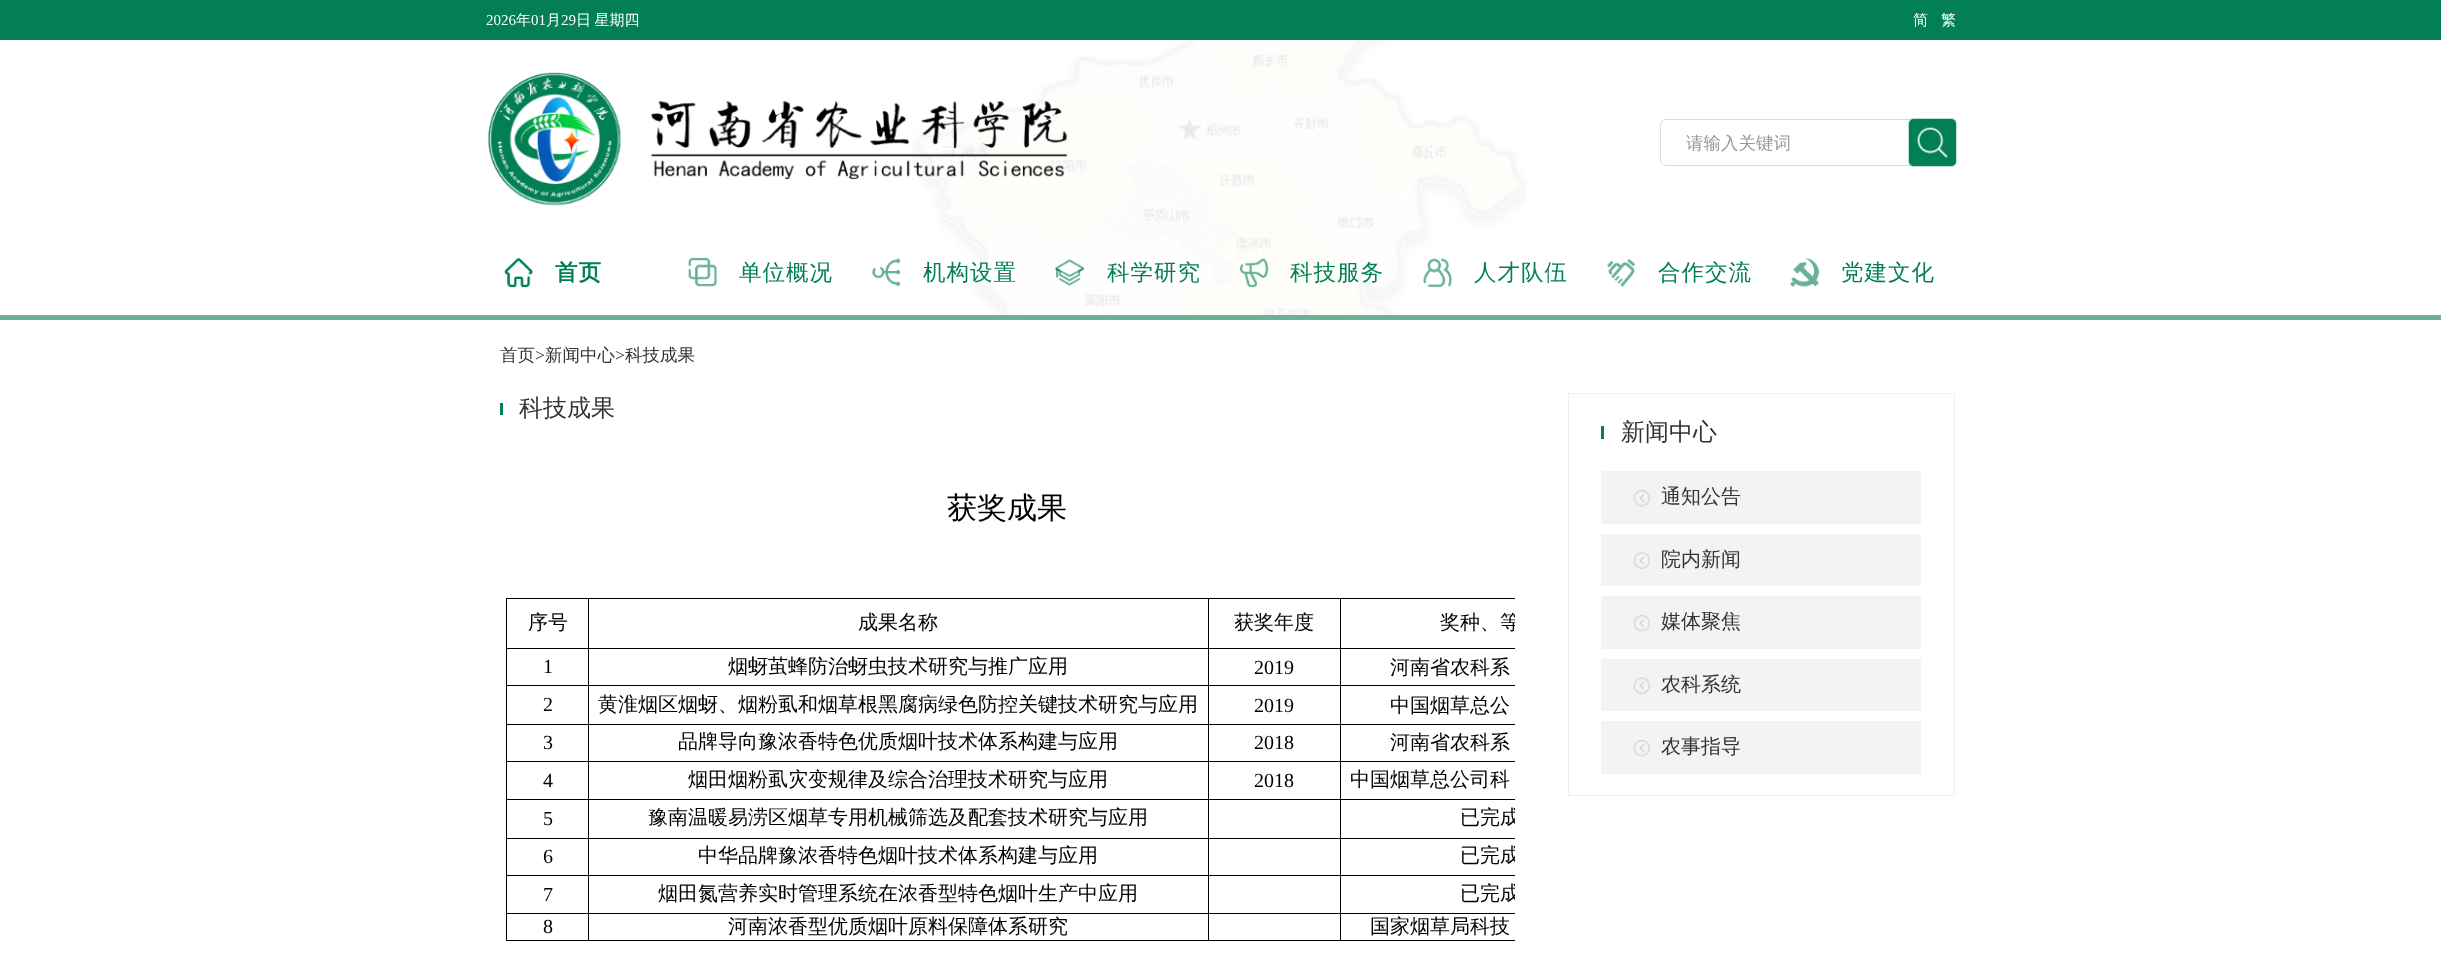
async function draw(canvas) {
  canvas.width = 2441;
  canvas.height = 966;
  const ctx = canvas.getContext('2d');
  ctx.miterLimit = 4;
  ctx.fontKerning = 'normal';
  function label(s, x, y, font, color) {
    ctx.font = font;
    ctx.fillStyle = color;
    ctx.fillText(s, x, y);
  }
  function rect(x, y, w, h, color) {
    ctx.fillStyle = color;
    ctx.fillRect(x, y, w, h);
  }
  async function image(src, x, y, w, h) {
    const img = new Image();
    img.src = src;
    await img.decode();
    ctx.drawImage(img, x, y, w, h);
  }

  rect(0, 0, 2441, 966, '#fff');
  rect(0, 0, 2441, 40, '#027f54');
  label('2026', 486, 25, '15px Liberation Serif', '#fff');
  label('年', 516, 25, '500 15px WenQuanYi Zen Hei', '#fff');
  label('01', 531, 25, '15px Liberation Serif', '#fff');
  label('月', 546, 25, '500 15px WenQuanYi Zen Hei', '#fff');
  label('29', 561, 25, '15px Liberation Serif', '#fff');
  ctx.wordSpacing = '-1px';
  label('日 星期四', 576, 25, '500 15px WenQuanYi Zen Hei', '#fff');
  ctx.wordSpacing = '0px';
  label('简', 1913, 25, '500 15px WenQuanYi Zen Hei', '#fff');
  label('繁', 1941, 25, '500 15px WenQuanYi Zen Hei', '#fff');
  await image('assets/img1.png', 912, 40, 615, 275);
  await image('assets/img2.png', 488, 72, 580, 134);
  ctx.beginPath();
  ctx.roundRect(1660.5, 119.5, 255, 46, 5.5);
  ctx.strokeStyle = '#dbdbdb';
  ctx.stroke();
  label('请输入关键词', 1686, 149, '500 17.5px WenQuanYi Zen Hei', '#999');
  await image('assets/img3.png', 1908, 118, 49, 49);
  await image('assets/img4.png', 504, 257, 29, 31);
  ctx.letterSpacing = '1px';
  label('首页', 555, 280, 'bold 22.5px WenQuanYi Zen Hei', '#027f54');
  await image('assets/img5.png', 688, 257, 29, 30);
  label('单位概况', 739, 280, '500 22.5px WenQuanYi Zen Hei', '#027f54');
  await image('assets/img6.png', 872, 258, 29, 29);
  label('机构设置', 923, 280, '500 22.5px WenQuanYi Zen Hei', '#027f54');
  await image('assets/img7.png', 1055, 259, 30, 27);
  label('科学研究', 1107, 280, '500 22.5px WenQuanYi Zen Hei', '#027f54');
  await image('assets/img8.png', 1240, 258, 29, 30);
  label('科技服务', 1290, 280, '500 22.5px WenQuanYi Zen Hei', '#027f54');
  await image('assets/img9.png', 1423, 258, 29, 30);
  label('人才队伍', 1474, 280, '500 22.5px WenQuanYi Zen Hei', '#027f54');
  await image('assets/img10.png', 1606, 258, 30, 29);
  label('合作交流', 1658, 280, '500 22.5px WenQuanYi Zen Hei', '#027f54');
  await image('assets/img11.png', 1790, 258, 29, 29);
  label('党建文化', 1841, 280, '500 22.5px WenQuanYi Zen Hei', '#027f54');
  rect(0, 315, 2441, 5, '#67b298');
  ctx.letterSpacing = '0px';
  label('首页', 500, 361, '500 17.5px WenQuanYi Zen Hei', '#333');
  label('>', 535, 361, '17.5px Liberation Serif', '#333');
  label('新闻中心', 545, 361, '500 17.5px WenQuanYi Zen Hei', '#333');
  label('>', 615, 361, '17.5px Liberation Serif', '#333');
  label('科技成果', 625, 361, '500 17.5px WenQuanYi Zen Hei', '#333');
  rect(500, 403, 3, 12, '#027f54');
  label('科技成果', 519, 416, '500 24px WenQuanYi Zen Hei', '#333');
  label('获奖成果', 947, 518, '500 30px WenQuanYi Zen Hei', '#000');
  rect(506, 598, 1009, 1, '#000');
  rect(1340, 940, 175, 1, '#000');
  rect(1340, 913, 1, 28, '#000');
  rect(1340, 913, 175, 1, '#000');
  rect(1340, 875, 1, 39, '#000');
  rect(1340, 875, 175, 1, '#000');
  rect(1340, 838, 1, 38, '#000');
  rect(1340, 838, 175, 1, '#000');
  rect(1340, 799, 1, 40, '#000');
  rect(1340, 799, 175, 1, '#000');
  rect(1340, 761, 1, 39, '#000');
  rect(1340, 761, 175, 1, '#000');
  rect(1340, 724, 1, 39, '#000');
  rect(1340, 724, 175, 1, '#000');
  rect(1340, 685, 1, 40, '#000');
  rect(1340, 685, 175, 1, '#000');
  rect(1340, 648, 1, 38, '#000');
  rect(1340, 648, 175, 1, '#000');
  rect(1340, 598, 1, 51, '#000');
  rect(1208, 940, 133, 1, '#000');
  rect(1208, 913, 1, 28, '#000');
  rect(1208, 913, 133, 1, '#000');
  rect(1208, 875, 1, 39, '#000');
  rect(1208, 875, 133, 1, '#000');
  rect(1208, 838, 1, 38, '#000');
  rect(1208, 838, 133, 1, '#000');
  rect(1208, 799, 1, 40, '#000');
  rect(1208, 799, 133, 1, '#000');
  rect(1208, 761, 1, 39, '#000');
  rect(1208, 761, 133, 1, '#000');
  rect(1208, 724, 1, 39, '#000');
  rect(1208, 724, 133, 1, '#000');
  rect(1208, 685, 1, 40, '#000');
  rect(1208, 685, 133, 1, '#000');
  rect(1208, 648, 1, 38, '#000');
  rect(1208, 648, 133, 1, '#000');
  rect(1208, 598, 1, 51, '#000');
  rect(588, 940, 621, 1, '#000');
  rect(588, 913, 1, 28, '#000');
  rect(588, 913, 621, 1, '#000');
  rect(588, 875, 1, 39, '#000');
  rect(588, 875, 621, 1, '#000');
  rect(588, 838, 1, 38, '#000');
  rect(588, 838, 621, 1, '#000');
  rect(588, 799, 1, 40, '#000');
  rect(588, 799, 621, 1, '#000');
  rect(588, 761, 1, 39, '#000');
  rect(588, 761, 621, 1, '#000');
  rect(588, 724, 1, 39, '#000');
  rect(588, 724, 621, 1, '#000');
  rect(588, 685, 1, 40, '#000');
  rect(588, 685, 621, 1, '#000');
  rect(588, 648, 1, 38, '#000');
  rect(588, 648, 621, 1, '#000');
  rect(588, 598, 1, 51, '#000');
  rect(506, 940, 83, 1, '#000');
  rect(506, 913, 1, 28, '#000');
  rect(506, 913, 83, 1, '#000');
  rect(506, 875, 1, 39, '#000');
  rect(506, 875, 83, 1, '#000');
  rect(506, 838, 1, 38, '#000');
  rect(506, 838, 83, 1, '#000');
  rect(506, 799, 1, 40, '#000');
  rect(506, 799, 83, 1, '#000');
  rect(506, 761, 1, 39, '#000');
  rect(506, 761, 83, 1, '#000');
  rect(506, 724, 1, 39, '#000');
  rect(506, 724, 83, 1, '#000');
  rect(506, 685, 1, 40, '#000');
  rect(506, 685, 83, 1, '#000');
  rect(506, 648, 1, 38, '#000');
  rect(506, 648, 83, 1, '#000');
  rect(506, 598, 1, 51, '#000');
  label('序号', 528, 629, '500 20px WenQuanYi Zen Hei', '#000');
  label('成果名称', 858, 629, '500 20px WenQuanYi Zen Hei', '#000');
  label('获奖年度', 1234, 629, '500 20px WenQuanYi Zen Hei', '#000');
  ctx.save();
  ctx.beginPath();
  ctx.rect(500, 393, 1015, 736);
  ctx.clip();
  label('奖种、等', 1440, 629, '500 20px WenQuanYi Zen Hei', '#000');
  ctx.restore();
  label('1', 543, 673, '20px Liberation Serif', '#000');
  label('烟蚜茧蜂防治蚜虫技术研究与推广应用', 728, 673, '500 20px WenQuanYi Zen Hei', '#000');
  label('2019', 1254, 674, '20px Liberation Serif', '#000');
  label('河南省农科系', 1390, 674, '500 20px WenQuanYi Zen Hei', '#000');
  label('2', 543, 711, '20px Liberation Serif', '#000');
  label('黄淮烟区烟蚜、烟粉虱和烟草根黑腐病绿色防控关键技术研究与应用', 598, 711, '500 20px WenQuanYi Zen Hei', '#000');
  label('2019', 1254, 712, '20px Liberation Serif', '#000');
  label('中国烟草总公', 1390, 712, '500 20px WenQuanYi Zen Hei', '#000');
  label('3', 543, 749, '20px Liberation Serif', '#000');
  label('品牌导向豫浓香特色优质烟叶技术体系构建与应用', 678, 748, '500 20px WenQuanYi Zen Hei', '#000');
  label('2018', 1254, 749, '20px Liberation Serif', '#000');
  label('河南省农科系', 1390, 749, '500 20px WenQuanYi Zen Hei', '#000');
  label('4', 543, 787, '20px Liberation Serif', '#000');
  label('烟田烟粉虱灾变规律及综合治理技术研究与应用', 688, 786, '500 20px WenQuanYi Zen Hei', '#000');
  label('2018', 1254, 787, '20px Liberation Serif', '#000');
  label('中国烟草总公司科', 1350, 786, '500 20px WenQuanYi Zen Hei', '#000');
  label('5', 543, 825, '20px Liberation Serif', '#000');
  label('豫南温暖易涝区烟草专用机械筛选及配套技术研究与应用', 648, 824, '500 20px WenQuanYi Zen Hei', '#000');
  ctx.save();
  ctx.beginPath();
  ctx.rect(500, 393, 1015, 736);
  ctx.clip();
  label('已完成', 1460, 824, '500 20px WenQuanYi Zen Hei', '#000');
  ctx.restore();
  label('6', 543, 863, '20px Liberation Serif', '#000');
  label('中华品牌豫浓香特色烟叶技术体系构建与应用', 698, 862, '500 20px WenQuanYi Zen Hei', '#000');
  ctx.save();
  ctx.beginPath();
  ctx.rect(500, 393, 1015, 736);
  ctx.clip();
  label('已完成', 1460, 862, '500 20px WenQuanYi Zen Hei', '#000');
  ctx.restore();
  label('7', 543, 901, '20px Liberation Serif', '#000');
  label('烟田氮营养实时管理系统在浓香型特色烟叶生产中应用', 658, 900, '500 20px WenQuanYi Zen Hei', '#000');
  ctx.save();
  ctx.beginPath();
  ctx.rect(500, 393, 1015, 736);
  ctx.clip();
  label('已完成', 1460, 900, '500 20px WenQuanYi Zen Hei', '#000');
  ctx.restore();
  label('8', 543, 933, '20px Liberation Serif', '#000');
  label('河南浓香型优质烟叶原料保障体系研究', 728, 933, '500 20px WenQuanYi Zen Hei', '#000');
  label('国家烟草局科技', 1370, 933, '500 20px WenQuanYi Zen Hei', '#000');
  ctx.strokeStyle = '#efefef';
  ctx.strokeRect(1568.5, 393.5, 386, 402);
  rect(1601, 426, 3, 13, '#027f54');
  label('新闻中心', 1621, 440, '500 24px WenQuanYi Zen Hei', '#333');
  rect(1601, 471, 320, 53, '#f3f3f3');
  await image('assets/img12.png', 1633, 490, 17, 17);
  label('通知公告', 1661, 503, '500 20px WenQuanYi Zen Hei', '#333');
  rect(1601, 534, 320, 52, '#f3f3f3');
  await image('assets/img13.png', 1633, 552, 17, 17);
  label('院内新闻', 1661, 566, '500 20px WenQuanYi Zen Hei', '#333');
  rect(1601, 596, 320, 53, '#f3f3f3');
  await image('assets/img12.png', 1633, 615, 17, 17);
  label('媒体聚焦', 1661, 628, '500 20px WenQuanYi Zen Hei', '#333');
  rect(1601, 659, 320, 52, '#f3f3f3');
  await image('assets/img13.png', 1633, 677, 17, 17);
  label('农科系统', 1661, 691, '500 20px WenQuanYi Zen Hei', '#333');
  rect(1601, 721, 320, 53, '#f3f3f3');
  await image('assets/img12.png', 1633, 740, 17, 17);
  label('农事指导', 1661, 753, '500 20px WenQuanYi Zen Hei', '#333');
}

draw(document.querySelector('canvas'));
